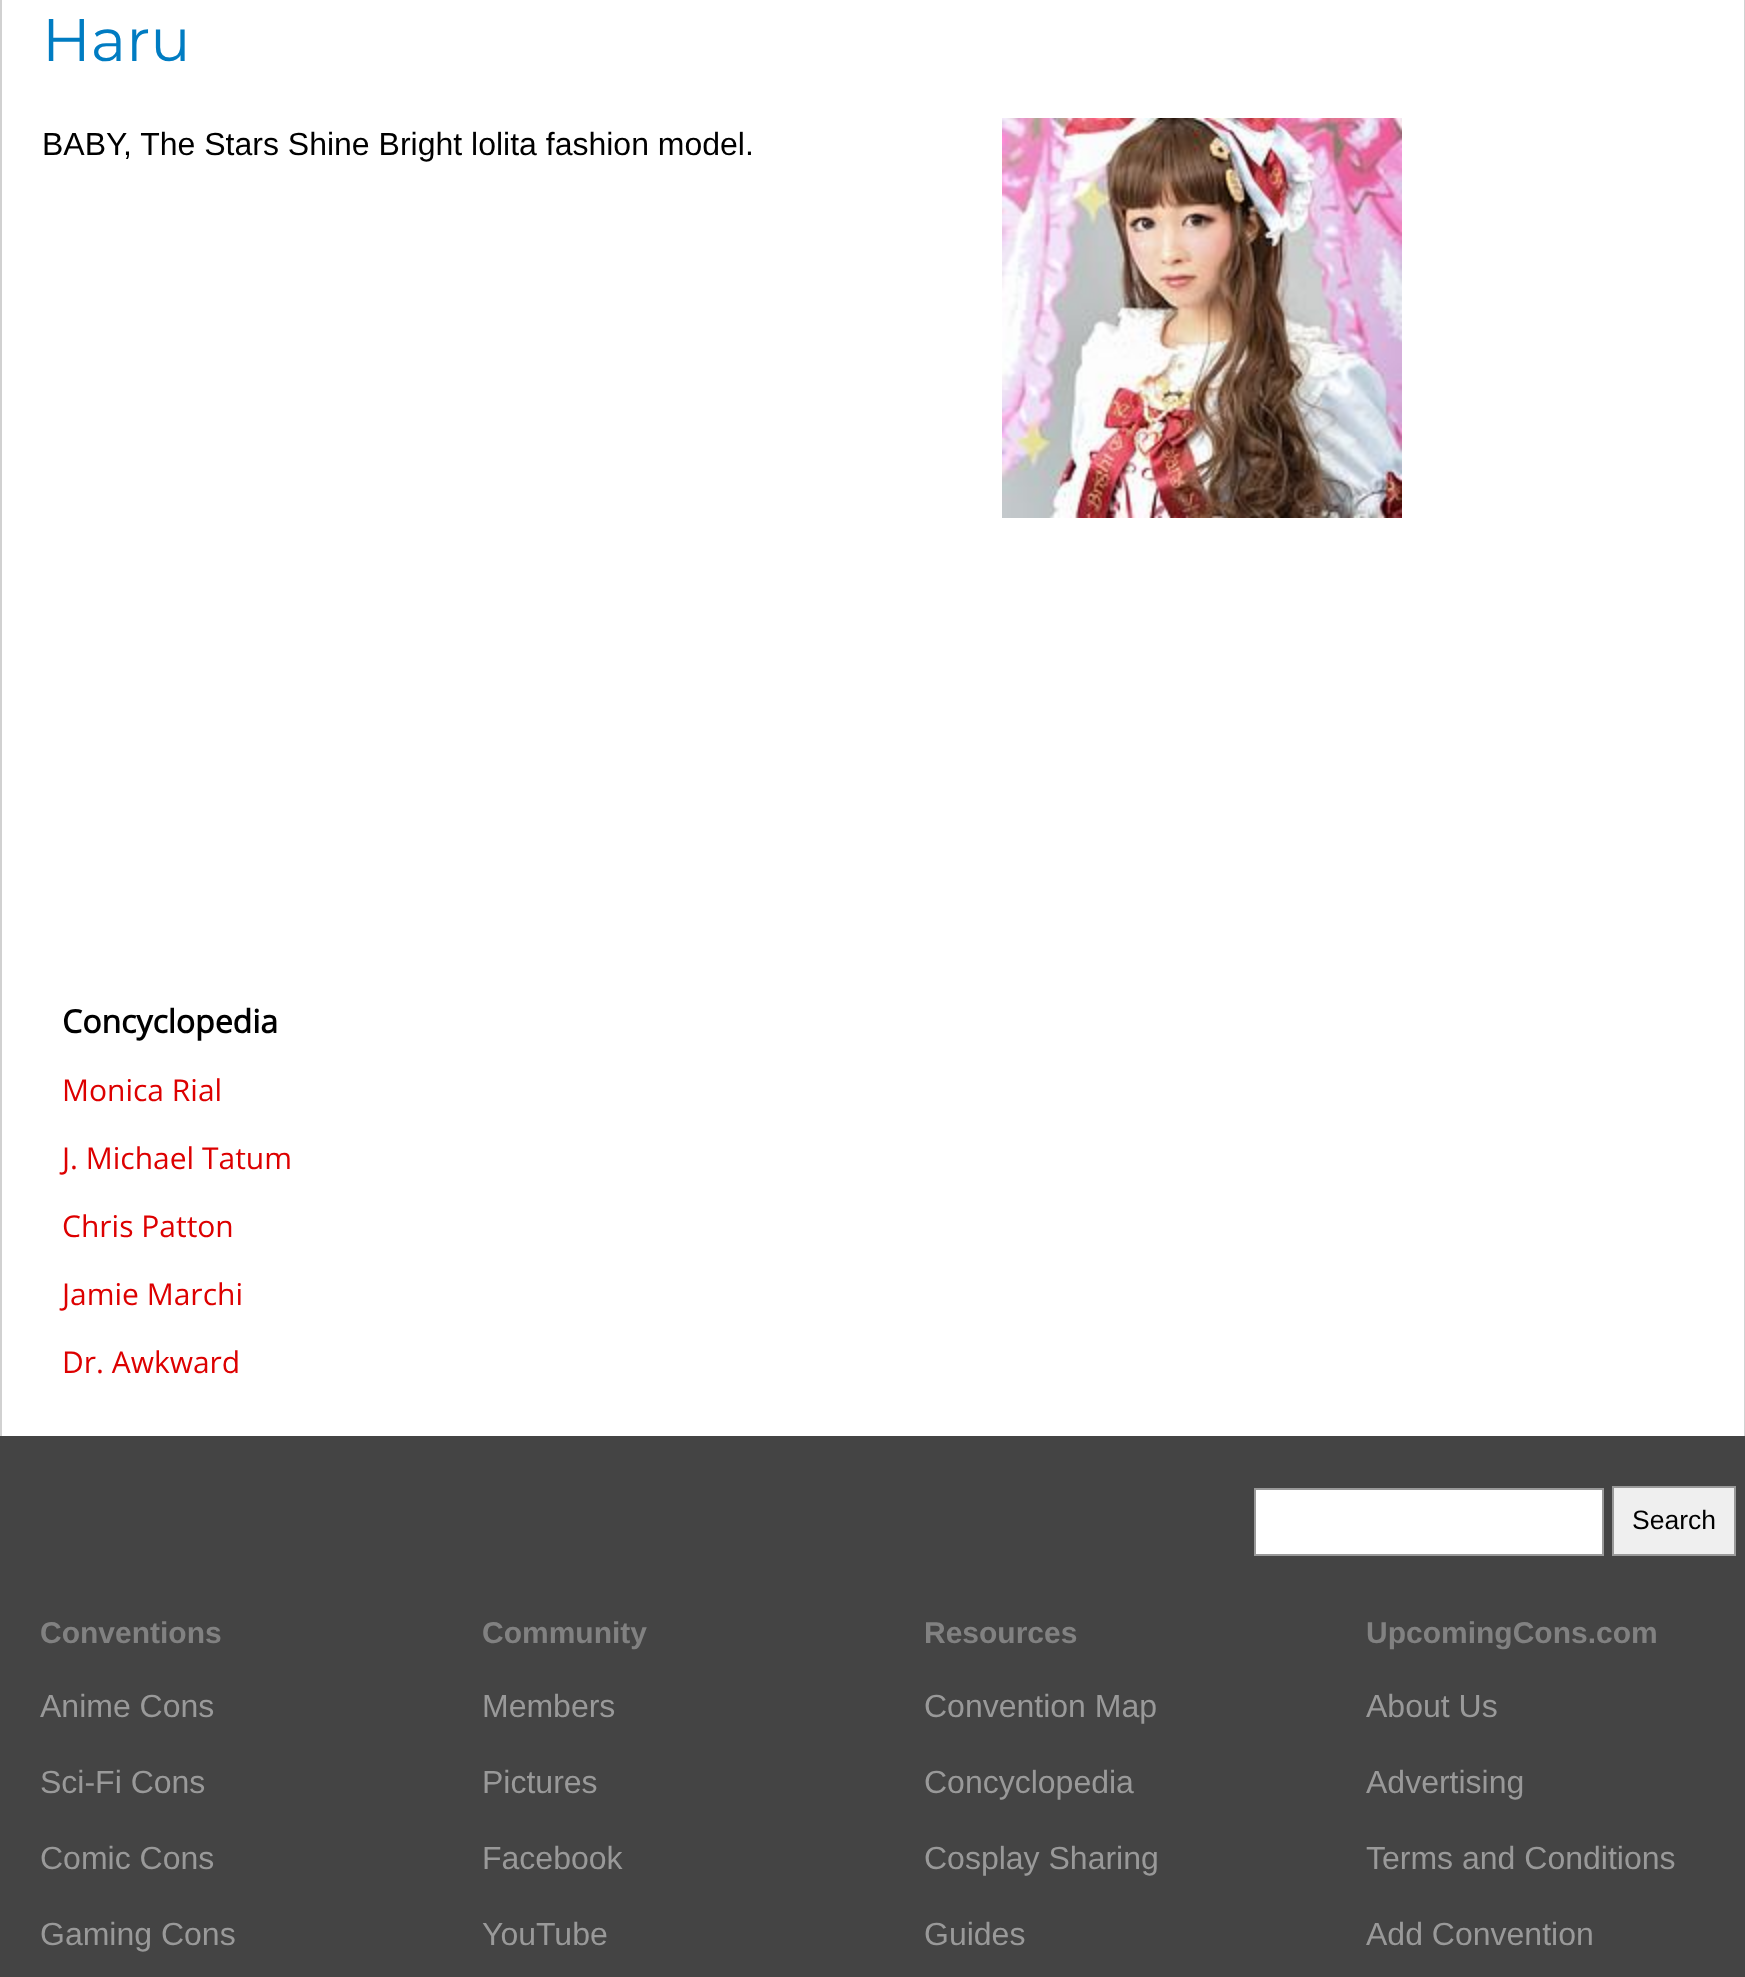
async function draw(canvas) {
  canvas.width = 1745;
  canvas.height = 1977;
  const ctx = canvas.getContext('2d');
  ctx.miterLimit = 4;
  ctx.fontKerning = 'normal';
  function label(s, x, y, font, color) {
    ctx.font = font;
    ctx.fillStyle = color;
    ctx.fillText(s, x, y);
  }
  function rect(x, y, w, h, color) {
    ctx.fillStyle = color;
    ctx.fillRect(x, y, w, h);
  }
  async function image(src, x, y, w, h) {
    const img = new Image();
    img.src = src;
    await img.decode();
    ctx.drawImage(img, x, y, w, h);
  }

  rect(0, 0, 1745, 1977, '#444');
  rect(2, 0, 1742, 1436, '#fff');
  rect(1744, 0, 1, 1436, '#d1d1d1');
  rect(0, 0, 2, 1436, '#d1d1d1');
  label('Haru', 42, 61, '100 60px Montserrat', '#007cc2');
  label('BABY', 42, 155, '32px Liberation Sans', '#000');
  label(', The Stars Shine Bright lolita fashion model.', 123, 155, '32px Liberation Sans', '#000');
  await image('assets/img1.png', 1002, 118, 400, 400);
  label('Concyclopedia', 62, 1033, 'bold 32px Open Sans', '#000');
  label('Monica Rial', 62, 1101, '30px Open Sans', '#d00');
  label('J. Michael Tatum', 62, 1169, '30px Open Sans', '#d00');
  label('Chris Patton', 62, 1237, '30px Open Sans', '#d00');
  label('Jamie Marchi', 62, 1305, '30px Open Sans', '#d00');
  label('Dr. Awkward', 62, 1373, '30px Open Sans', '#d00');
  ctx.fillStyle = '#fff';
  ctx.beginPath();
  ctx.rect(1255, 1489, 348, 66);
  ctx.fill();
  ctx.strokeStyle = '#999';
  ctx.lineWidth = 2;
  ctx.stroke();
  ctx.fillStyle = '#efefef';
  ctx.beginPath();
  ctx.rect(1613, 1487, 122, 68);
  ctx.fill();
  ctx.stroke();
  label('Search', 1632, 1529, '26.5px Liberation Sans', '#000');
  label('Conventions', 40, 1643, 'bold 30px Liberation Sans', '#818181');
  label('Anime Cons', 40, 1717, '32px Liberation Sans', '#999');
  label('Sci-Fi Cons', 40, 1793, '32px Liberation Sans', '#999');
  label('Comic Cons', 40, 1869, '32px Liberation Sans', '#999');
  label('Gaming Cons', 40, 1945, '32px Liberation Sans', '#999');
  label('Community', 482, 1643, 'bold 30px Liberation Sans', '#818181');
  label('Members', 482, 1717, '32px Liberation Sans', '#999');
  label('Pictures', 482, 1793, '32px Liberation Sans', '#999');
  label('Facebook', 482, 1869, '32px Liberation Sans', '#999');
  label('YouTube', 482, 1945, '32px Liberation Sans', '#999');
  label('Resources', 924, 1643, 'bold 30px Liberation Sans', '#818181');
  label('Convention Map', 924, 1717, '32px Liberation Sans', '#999');
  label('Concyclopedia', 924, 1793, '32px Liberation Sans', '#999');
  label('Cosplay Sharing', 924, 1869, '32px Liberation Sans', '#999');
  label('Guides', 924, 1945, '32px Liberation Sans', '#999');
  label('UpcomingCons.com', 1366, 1643, 'bold 30px Liberation Sans', '#818181');
  label('About Us', 1366, 1717, '32px Liberation Sans', '#999');
  label('Advertising', 1366, 1793, '32px Liberation Sans', '#999');
  label('Terms and Conditions', 1366, 1869, '32px Liberation Sans', '#999');
  label('Add Convention', 1366, 1945, '32px Liberation Sans', '#999');
}

draw(document.querySelector('canvas'));
